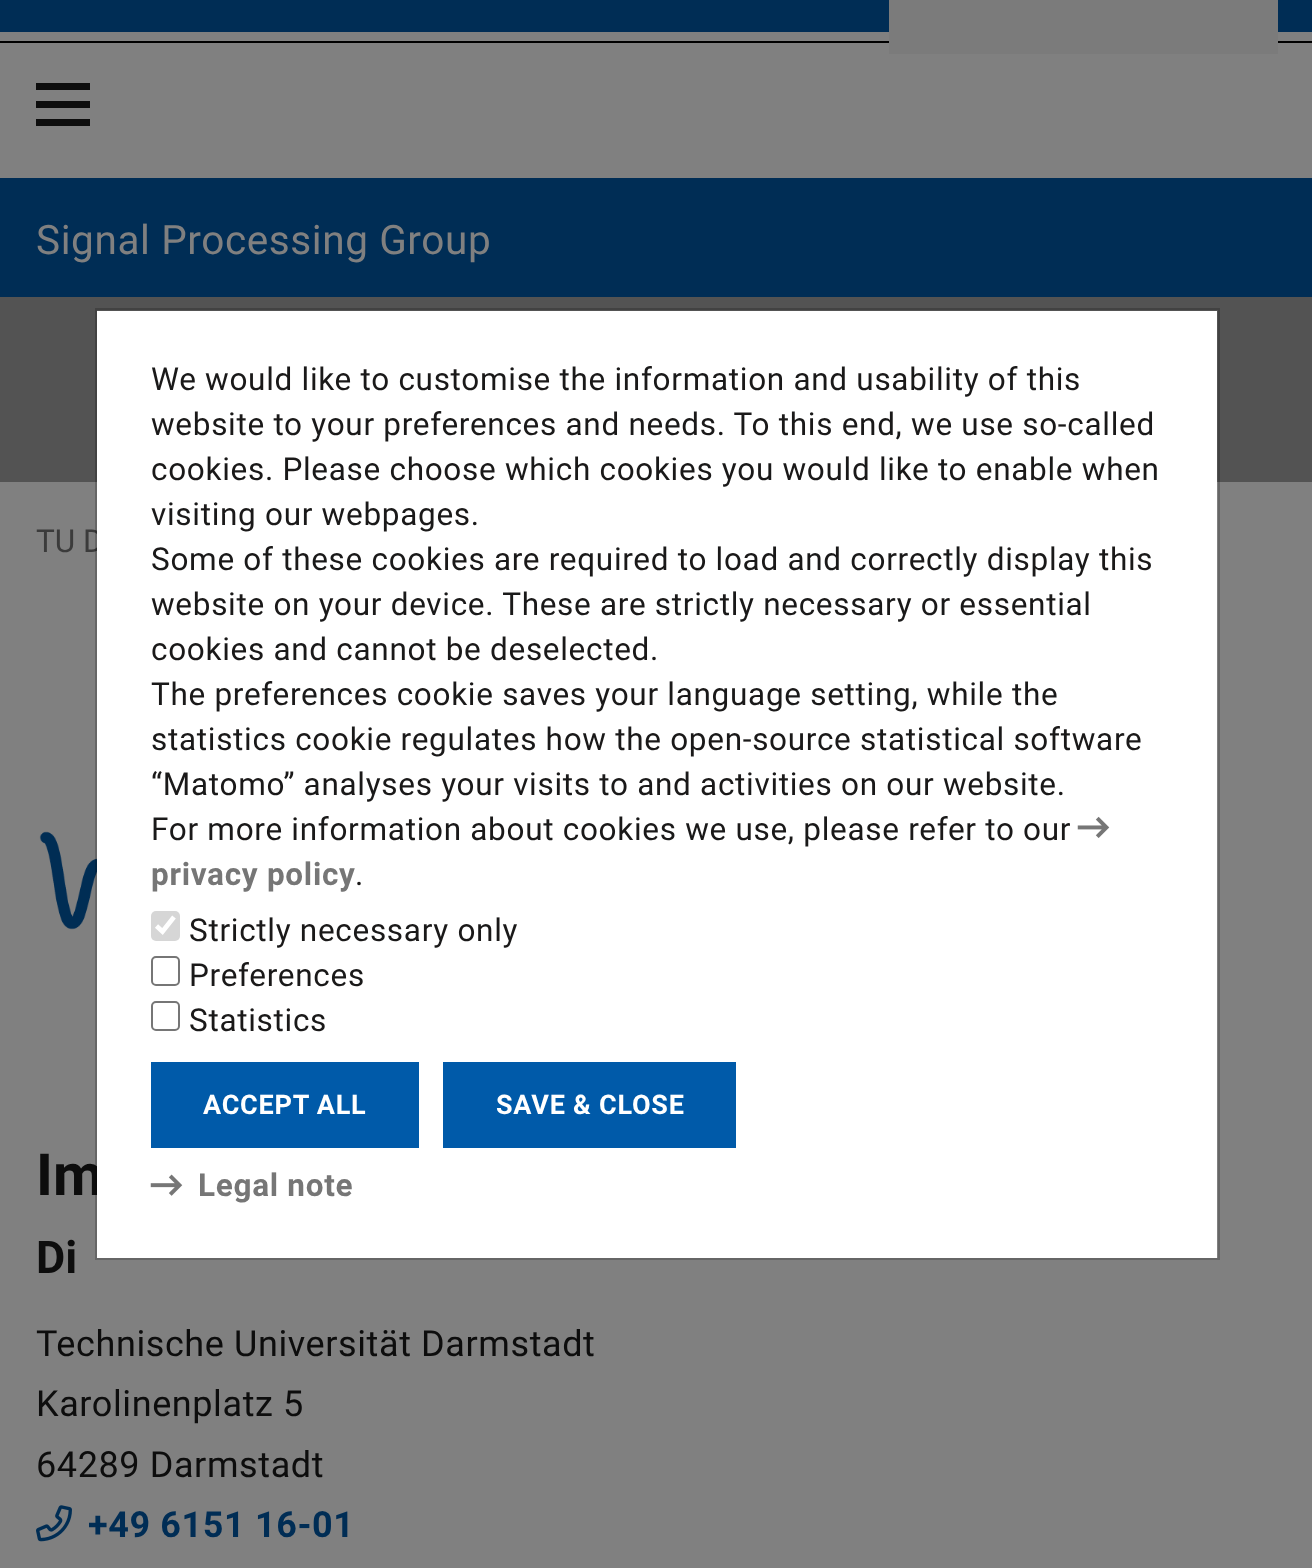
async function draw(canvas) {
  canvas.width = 1312;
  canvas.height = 1568;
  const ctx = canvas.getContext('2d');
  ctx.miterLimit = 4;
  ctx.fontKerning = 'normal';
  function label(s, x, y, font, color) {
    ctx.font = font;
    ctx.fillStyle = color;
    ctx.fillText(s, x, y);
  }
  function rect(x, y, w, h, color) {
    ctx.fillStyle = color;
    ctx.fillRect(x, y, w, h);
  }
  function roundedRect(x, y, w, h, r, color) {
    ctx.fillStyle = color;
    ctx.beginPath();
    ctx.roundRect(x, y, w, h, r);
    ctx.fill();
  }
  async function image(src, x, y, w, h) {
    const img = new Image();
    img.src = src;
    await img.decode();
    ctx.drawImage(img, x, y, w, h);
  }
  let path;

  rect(0, 0, 1312, 1568, '#808080');
  rect(0, 0, 1312, 32, '#002d55');
  rect(0, 41, 1312, 2, '#000');
  rect(889, 0, 389, 54, '#7b7b7b');
  rect(36, 101, 54, 7, '#0d0d0d');
  rect(36, 83, 54, 7, '#0d0d0d');
  rect(36, 119, 54, 7, '#0d0d0d');
  rect(0, 178, 1312, 119, '#002d55');
  ctx.letterSpacing = '0.6px';
  label('Signal Processing Group', 36, 254, '40.5px Roboto', '#808080');
  rect(0, 297, 1312, 185, '#535353');
  ctx.letterSpacing = '0px';
  label('TU D', 36, 552, '31.5px Roboto', '#3b3b3b');
  await image('assets/img1.png', 39, 803, 58, 275);
  label('Im', 36, 1195, 'bold 58px Roboto', '#0d0d0d');
  label('Di', 36, 1273, 'bold 45px Roboto', '#0d0d0d');
  ctx.letterSpacing = '0.6px';
  label('Technische Universität Darmstadt', 36, 1356, '36px Roboto', '#0d0d0d');
  label('Karolinenplatz 5', 36, 1416, '36px Roboto', '#0d0d0d');
  label('64289 Darmstadt', 36, 1477, '36px Roboto', '#0d0d0d');
  await image('assets/img2.png', 36, 1505, 36, 37);
  label('+49 6151 16-01', 88, 1537, 'bold 36px Roboto', '#002d55');
  rect(97, 311, 1120, 947, '#fff');
  ctx.strokeStyle = '#00000033';
  ctx.lineWidth = 2;
  ctx.strokeRect(96, 309, 1123, 950);
  ctx.letterSpacing = '0.7px';
  label('We would like to customise the information and usability of this', 151, 390, '31.5px Roboto', '#1a1919');
  label('website to your preferences and needs. To this end, we use so-called', 151, 435, '31.5px Roboto', '#1a1919');
  label('cookies. Please choose which cookies you would like to enable when', 151, 480, '31.5px Roboto', '#1a1919');
  label('visiting our webpages.', 151, 525, '31.5px Roboto', '#1a1919');
  label('Some of these cookies are required to load and correctly display this', 151, 570, '31.5px Roboto', '#1a1919');
  label('website on your device. These are strictly necessary or essential', 151, 615, '31.5px Roboto', '#1a1919');
  label('cookies and cannot be deselected.', 151, 660, '31.5px Roboto', '#1a1919');
  label('The preferences cookie saves your language setting, while the', 151, 705, '31.5px Roboto', '#1a1919');
  label('statistics cookie regulates how the open-source statistical software', 151, 750, '31.5px Roboto', '#1a1919');
  label('“Matomo” analyses your visits to and activities on our website.', 151, 795, '31.5px Roboto', '#1a1919');
  label('For more information about cookies we use, please refer to our', 151, 840, '31.5px Roboto', '#1a1919');
  await image('assets/img3.png', 1077, 816, 33, 22);
  label('privacy policy', 151, 885, 'bold 31.5px Roboto', '#767676');
  label('.', 355, 885, '31.5px Roboto', '#1a1919');
  roundedRect(151, 911, 29, 30, 5, '#d6d6d6');
  path = new Path2D('M156.5 926L162.5 931.5L174 917');
  ctx.strokeStyle = '#fff';
  ctx.lineWidth = 4.7;
  ctx.stroke(path);
  label('Strictly necessary only', 189, 941, '31.5px Roboto', '#1a1919');
  ctx.beginPath();
  ctx.roundRect(152, 957, 27, 28, 4);
  ctx.strokeStyle = '#767676';
  ctx.lineWidth = 2;
  ctx.stroke();
  label('Preferences', 189, 986, '31.5px Roboto', '#1a1919');
  ctx.beginPath();
  ctx.roundRect(152, 1002, 27, 28, 4);
  ctx.stroke();
  label('Statistics', 189, 1031, '31.5px Roboto', '#1a1919');
  rect(151, 1062, 268, 86, '#005aa9');
  ctx.letterSpacing = '0.75px';
  label('ACCEPT ALL', 203, 1114, 'bold 27px Roboto', '#fff');
  rect(443, 1062, 293, 86, '#005aa9');
  label('SAVE & CLOSE', 496, 1114, 'bold 27px Roboto', '#fff');
  await image('assets/img4.png', 150, 1174, 33, 22);
  ctx.letterSpacing = '0.7px';
  label('Legal note', 198, 1196, 'bold 31.5px Roboto', '#767676');
}

draw(document.querySelector('canvas'));
